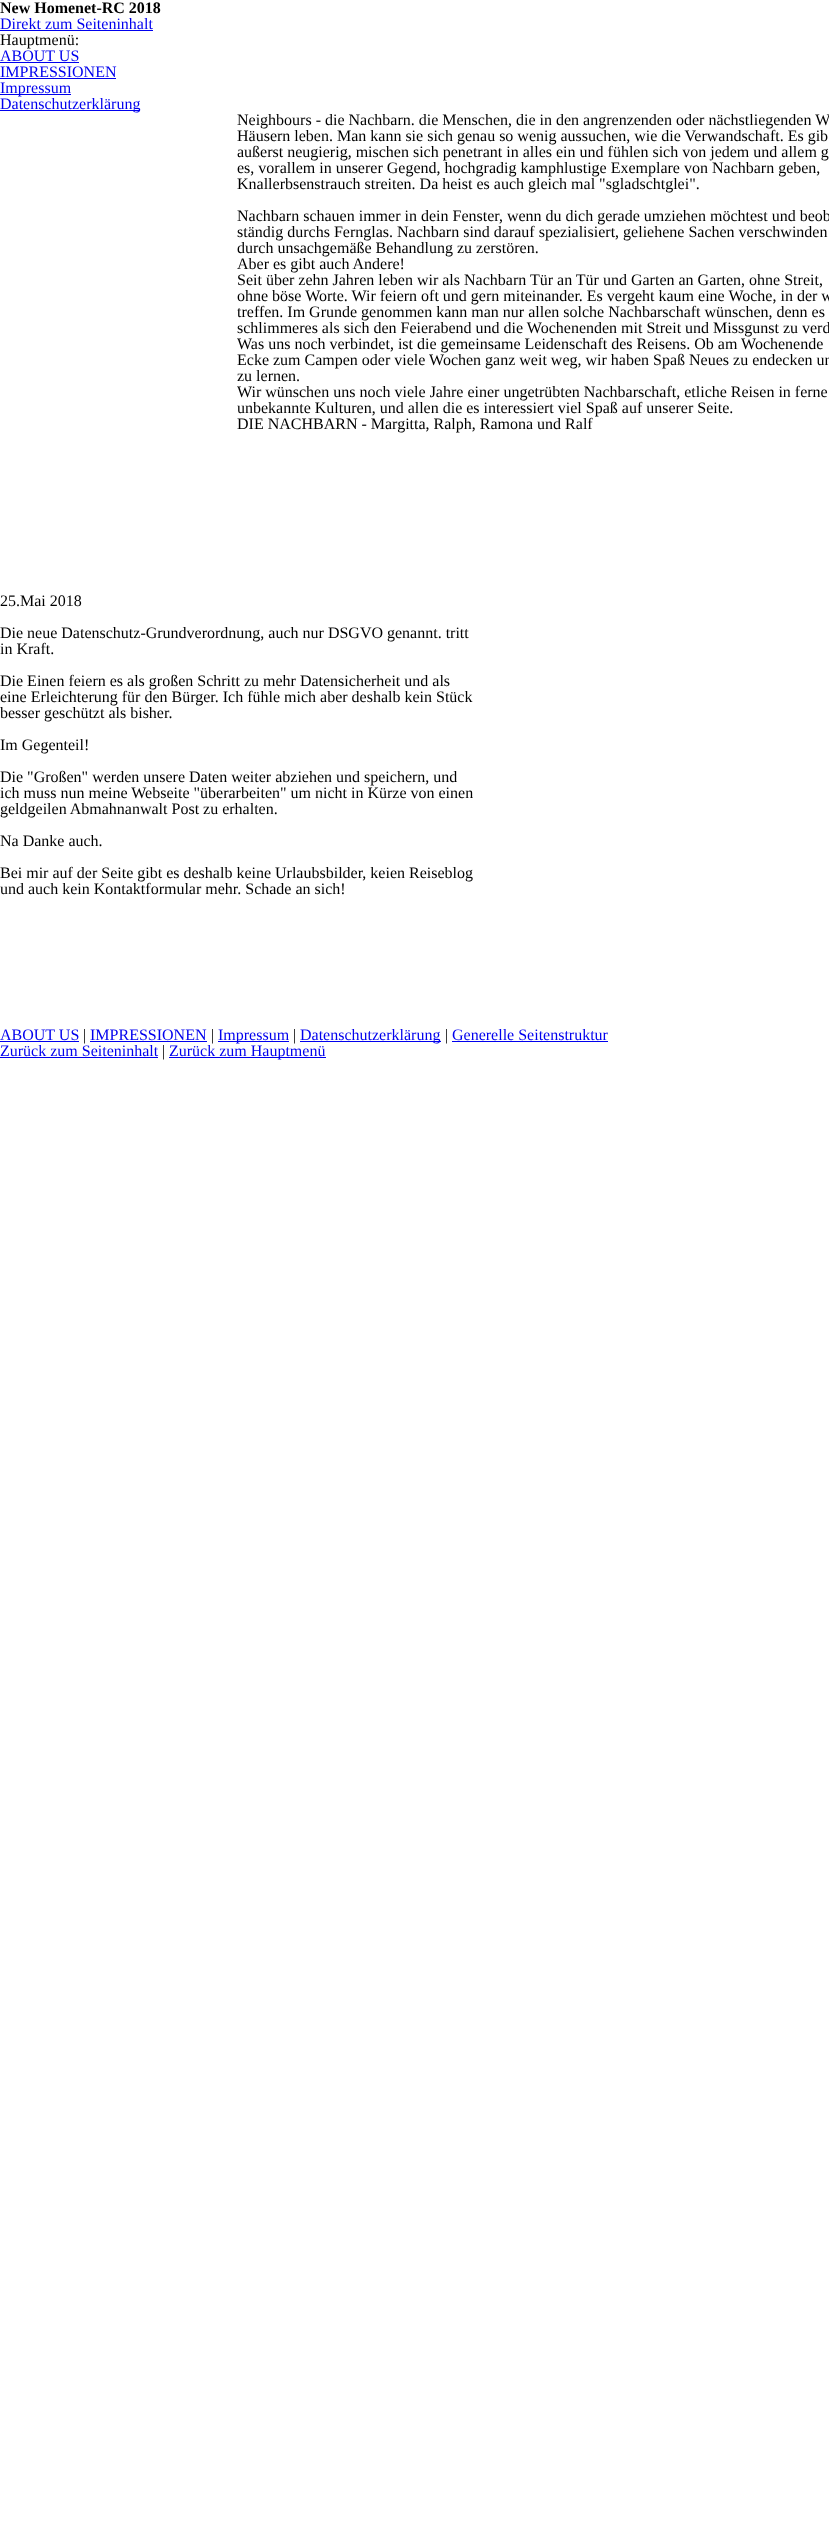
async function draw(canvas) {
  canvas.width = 829;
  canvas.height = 2544;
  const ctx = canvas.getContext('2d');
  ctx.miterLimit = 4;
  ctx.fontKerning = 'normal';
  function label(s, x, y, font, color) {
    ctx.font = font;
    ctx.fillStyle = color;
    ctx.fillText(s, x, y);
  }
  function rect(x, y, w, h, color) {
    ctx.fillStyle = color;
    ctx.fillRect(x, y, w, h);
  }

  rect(0, 0, 829, 2544, '#fff');
  label('New Homenet-RC 2018', 0, 13, 'bold 16px Liberation Serif', '#000');
  label('Direkt zum Seiteninhalt', 0, 29, '16px Liberation Serif', '#00e');
  rect(0, 30, 153, 1, '#00e');
  label('Hauptmenü:', 0, 45, '16px Liberation Serif', '#000');
  label('ABOUT US', 0, 61, '16px Liberation Serif', '#00e');
  rect(0, 62, 79, 1, '#00e');
  label('IMPRESSIONEN', 0, 77, '16px Liberation Serif', '#00e');
  rect(0, 78, 116, 1, '#00e');
  rect(0, 94, 71, 1, '#00e');
  label('Impressum', 0, 93, '16px Liberation Serif', '#00e');
  rect(0, 110, 140, 1, '#00e');
  label('Datenschutzerklärung', 0, 109, '16px Liberation Serif', '#00e');
  label('Neighbours - die Nachbarn. die Menschen, die in den angrenzenden oder nächstliegenden W', 237, 125, '16px Liberation Serif', '#000');
  label('Häusern leben. Man kann sie sich genau so wenig aussuchen, wie die Verwandschaft. Es gib', 237, 141, '16px Liberation Serif', '#000');
  label('außerst neugierig, mischen sich penetrant in alles ein und fühlen sich von jedem und allem g', 237, 157, '16px Liberation Serif', '#000');
  label('es, vorallem in unserer Gegend, hochgradig kamphlustige Exemplare von Nachbarn geben,', 237, 173, '16px Liberation Serif', '#000');
  label('Knallerbsenstrauch streiten. Da heist es auch gleich mal "sgladschtglei".', 237, 189, '16px Liberation Serif', '#000');
  label('Nachbarn schauen immer in dein Fenster, wenn du dich gerade umziehen möchtest und beob', 237, 221, '16px Liberation Serif', '#000');
  label('ständig durchs Fernglas. Nachbarn sind darauf spezialisiert, geliehene Sachen verschwinden', 237, 237, '16px Liberation Serif', '#000');
  label('durch unsachgemäße Behandlung zu zerstören.', 237, 253, '16px Liberation Serif', '#000');
  label('Aber es gibt auch Andere!', 237, 269, '16px Liberation Serif', '#000');
  label('Seit über zehn Jahren leben wir als Nachbarn Tür an Tür und Garten an Garten, ohne Streit,', 237, 285, '16px Liberation Serif', '#000');
  label('ohne böse Worte. Wir feiern oft und gern miteinander. Es vergeht kaum eine Woche, in der w', 237, 301, '16px Liberation Serif', '#000');
  label('treffen. Im Grunde genommen kann man nur allen solche Nachbarschaft wünschen, denn es', 237, 317, '16px Liberation Serif', '#000');
  label('schlimmeres als sich den Feierabend und die Wochenenden mit Streit und Missgunst zu verd', 237, 333, '16px Liberation Serif', '#000');
  label('Was uns noch verbindet, ist die gemeinsame Leidenschaft des Reisens. Ob am Wochenende', 237, 349, '16px Liberation Serif', '#000');
  label('Ecke zum Campen oder viele Wochen ganz weit weg, wir haben Spaß Neues zu endecken un', 237, 365, '16px Liberation Serif', '#000');
  label('zu lernen.', 237, 381, '16px Liberation Serif', '#000');
  label('Wir wünschen uns noch viele Jahre einer ungetrübten Nachbarschaft, etliche Reisen in ferne', 237, 397, '16px Liberation Serif', '#000');
  label('unbekannte Kulturen, und allen die es interessiert viel Spaß auf unserer Seite.', 237, 413, '16px Liberation Serif', '#000');
  label('DIE NACHBARN - Margitta, Ralph, Ramona und Ralf', 237, 429, '16px Liberation Serif', '#000');
  label('25.Mai 2018', 0, 606, '16px Liberation Serif', '#000');
  label('Die neue Datenschutz-Grundverordnung, auch nur DSGVO genannt. tritt', 0, 638, '16px Liberation Serif', '#000');
  label('in Kraft.', 0, 654, '16px Liberation Serif', '#000');
  label('Die Einen feiern es als großen Schritt zu mehr Datensicherheit und als', 0, 686, '16px Liberation Serif', '#000');
  label('eine Erleichterung für den Bürger. Ich fühle mich aber deshalb kein Stück', 0, 702, '16px Liberation Serif', '#000');
  label('besser geschützt als bisher.', 0, 718, '16px Liberation Serif', '#000');
  label('Im Gegenteil!', 0, 750, '16px Liberation Serif', '#000');
  label('Die "Großen" werden unsere Daten weiter abziehen und speichern, und', 0, 782, '16px Liberation Serif', '#000');
  label('ich muss nun meine Webseite "überarbeiten" um nicht in Kürze von einen', 0, 798, '16px Liberation Serif', '#000');
  label('geldgeilen Abmahnanwalt Post zu erhalten.', 0, 814, '16px Liberation Serif', '#000');
  label('Na Danke auch.', 0, 846, '16px Liberation Serif', '#000');
  label('Bei mir auf der Seite gibt es deshalb keine Urlaubsbilder, keien Reiseblog', 0, 878, '16px Liberation Serif', '#000');
  label('und auch kein Kontaktformular mehr. Schade an sich!', 0, 894, '16px Liberation Serif', '#000');
  label('ABOUT US', 0, 1040, '16px Liberation Serif', '#00e');
  rect(0, 1041, 79, 1, '#00e');
  label('|', 83, 1040, '16px Liberation Serif', '#000');
  label('IMPRESSIONEN', 90, 1040, '16px Liberation Serif', '#00e');
  rect(90, 1041, 117, 1, '#00e');
  label('|', 211, 1040, '16px Liberation Serif', '#000');
  rect(218, 1041, 71, 1, '#00e');
  label('Impressum', 218, 1040, '16px Liberation Serif', '#00e');
  label('|', 293, 1040, '16px Liberation Serif', '#000');
  rect(300, 1041, 141, 1, '#00e');
  label('Datenschutzerklärung', 300, 1040, '16px Liberation Serif', '#00e');
  label('|', 445, 1040, '16px Liberation Serif', '#000');
  label('Generelle Seitenstruktur', 452, 1040, '16px Liberation Serif', '#00e');
  rect(452, 1041, 156, 1, '#00e');
  label('Zurück zum Seiteninhalt', 0, 1056, '16px Liberation Serif', '#00e');
  rect(0, 1057, 158, 1, '#00e');
  label('|', 162, 1056, '16px Liberation Serif', '#000');
  rect(169, 1057, 157, 1, '#00e');
  label('Zurück zum Hauptmenü', 169, 1056, '16px Liberation Serif', '#00e');
}

draw(document.querySelector('canvas'));
